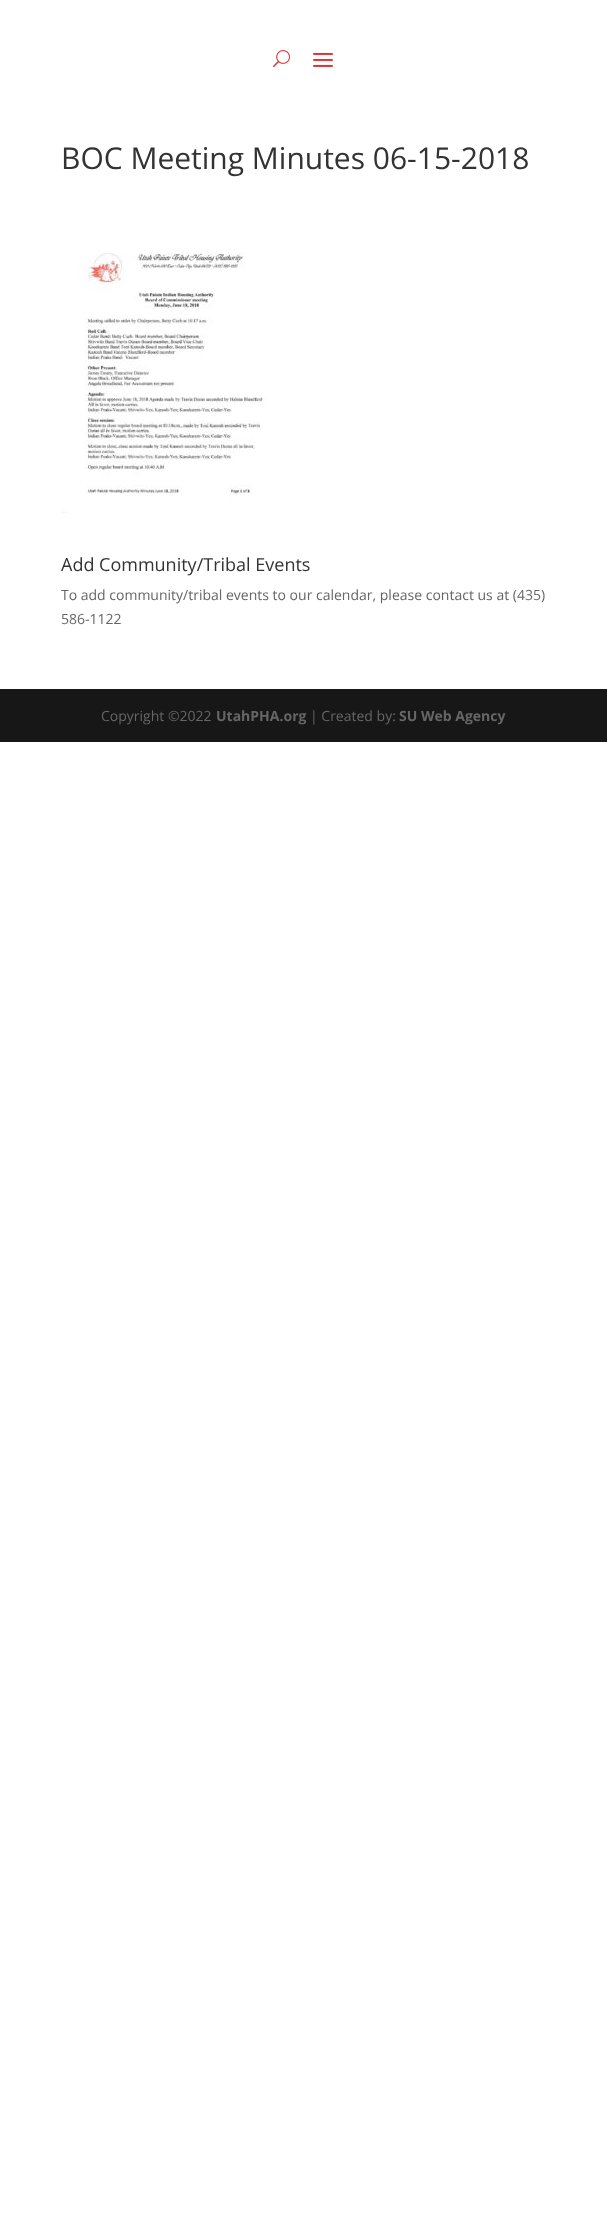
async function draw(canvas) {
  canvas.width = 607;
  canvas.height = 2225;
  const ctx = canvas.getContext('2d');
  ctx.miterLimit = 4;
  ctx.fontKerning = 'normal';
  function label(s, x, y, font, color) {
    ctx.font = font;
    ctx.fillStyle = color;
    ctx.fillText(s, x, y);
  }
  function rect(x, y, w, h, color) {
    ctx.fillStyle = color;
    ctx.fillRect(x, y, w, h);
  }
  async function image(src, x, y, w, h) {
    const img = new Image();
    img.src = src;
    await img.decode();
    ctx.drawImage(img, x, y, w, h);
  }

  rect(0, 0, 607, 2225, '#fff');
  await image('assets/img1.png', 273, 50, 17, 18);
  await image('assets/img2.png', 313, 52, 20, 15);
  label('BOC Meeting Minutes 06-15-2018', 61, 169, '30px Open Sans', '#333');
  await image('assets/img3.png', 61, 253, 206, 260);
  label('Add Community/Tribal Events', 61, 571, '18px Open Sans', '#333');
  label('To add community/tribal events to our calendar, please contact us at (435)', 61, 600, '14px Open Sans', '#666');
  label('586-1122', 61, 624, '14px Open Sans', '#666');
  rect(0, 689, 607, 53, '#171717');
  label('Copyright ©2022', 101, 721, '14px Open Sans', '#666');
  label('UtahPHA.org', 216, 721, 'bold 14px Open Sans', '#666');
  label('| Created by:', 310, 721, '14px Open Sans', '#666');
  label('SU Web Agency', 399, 721, 'bold 14px Open Sans', '#666');
}

draw(document.querySelector('canvas'));
